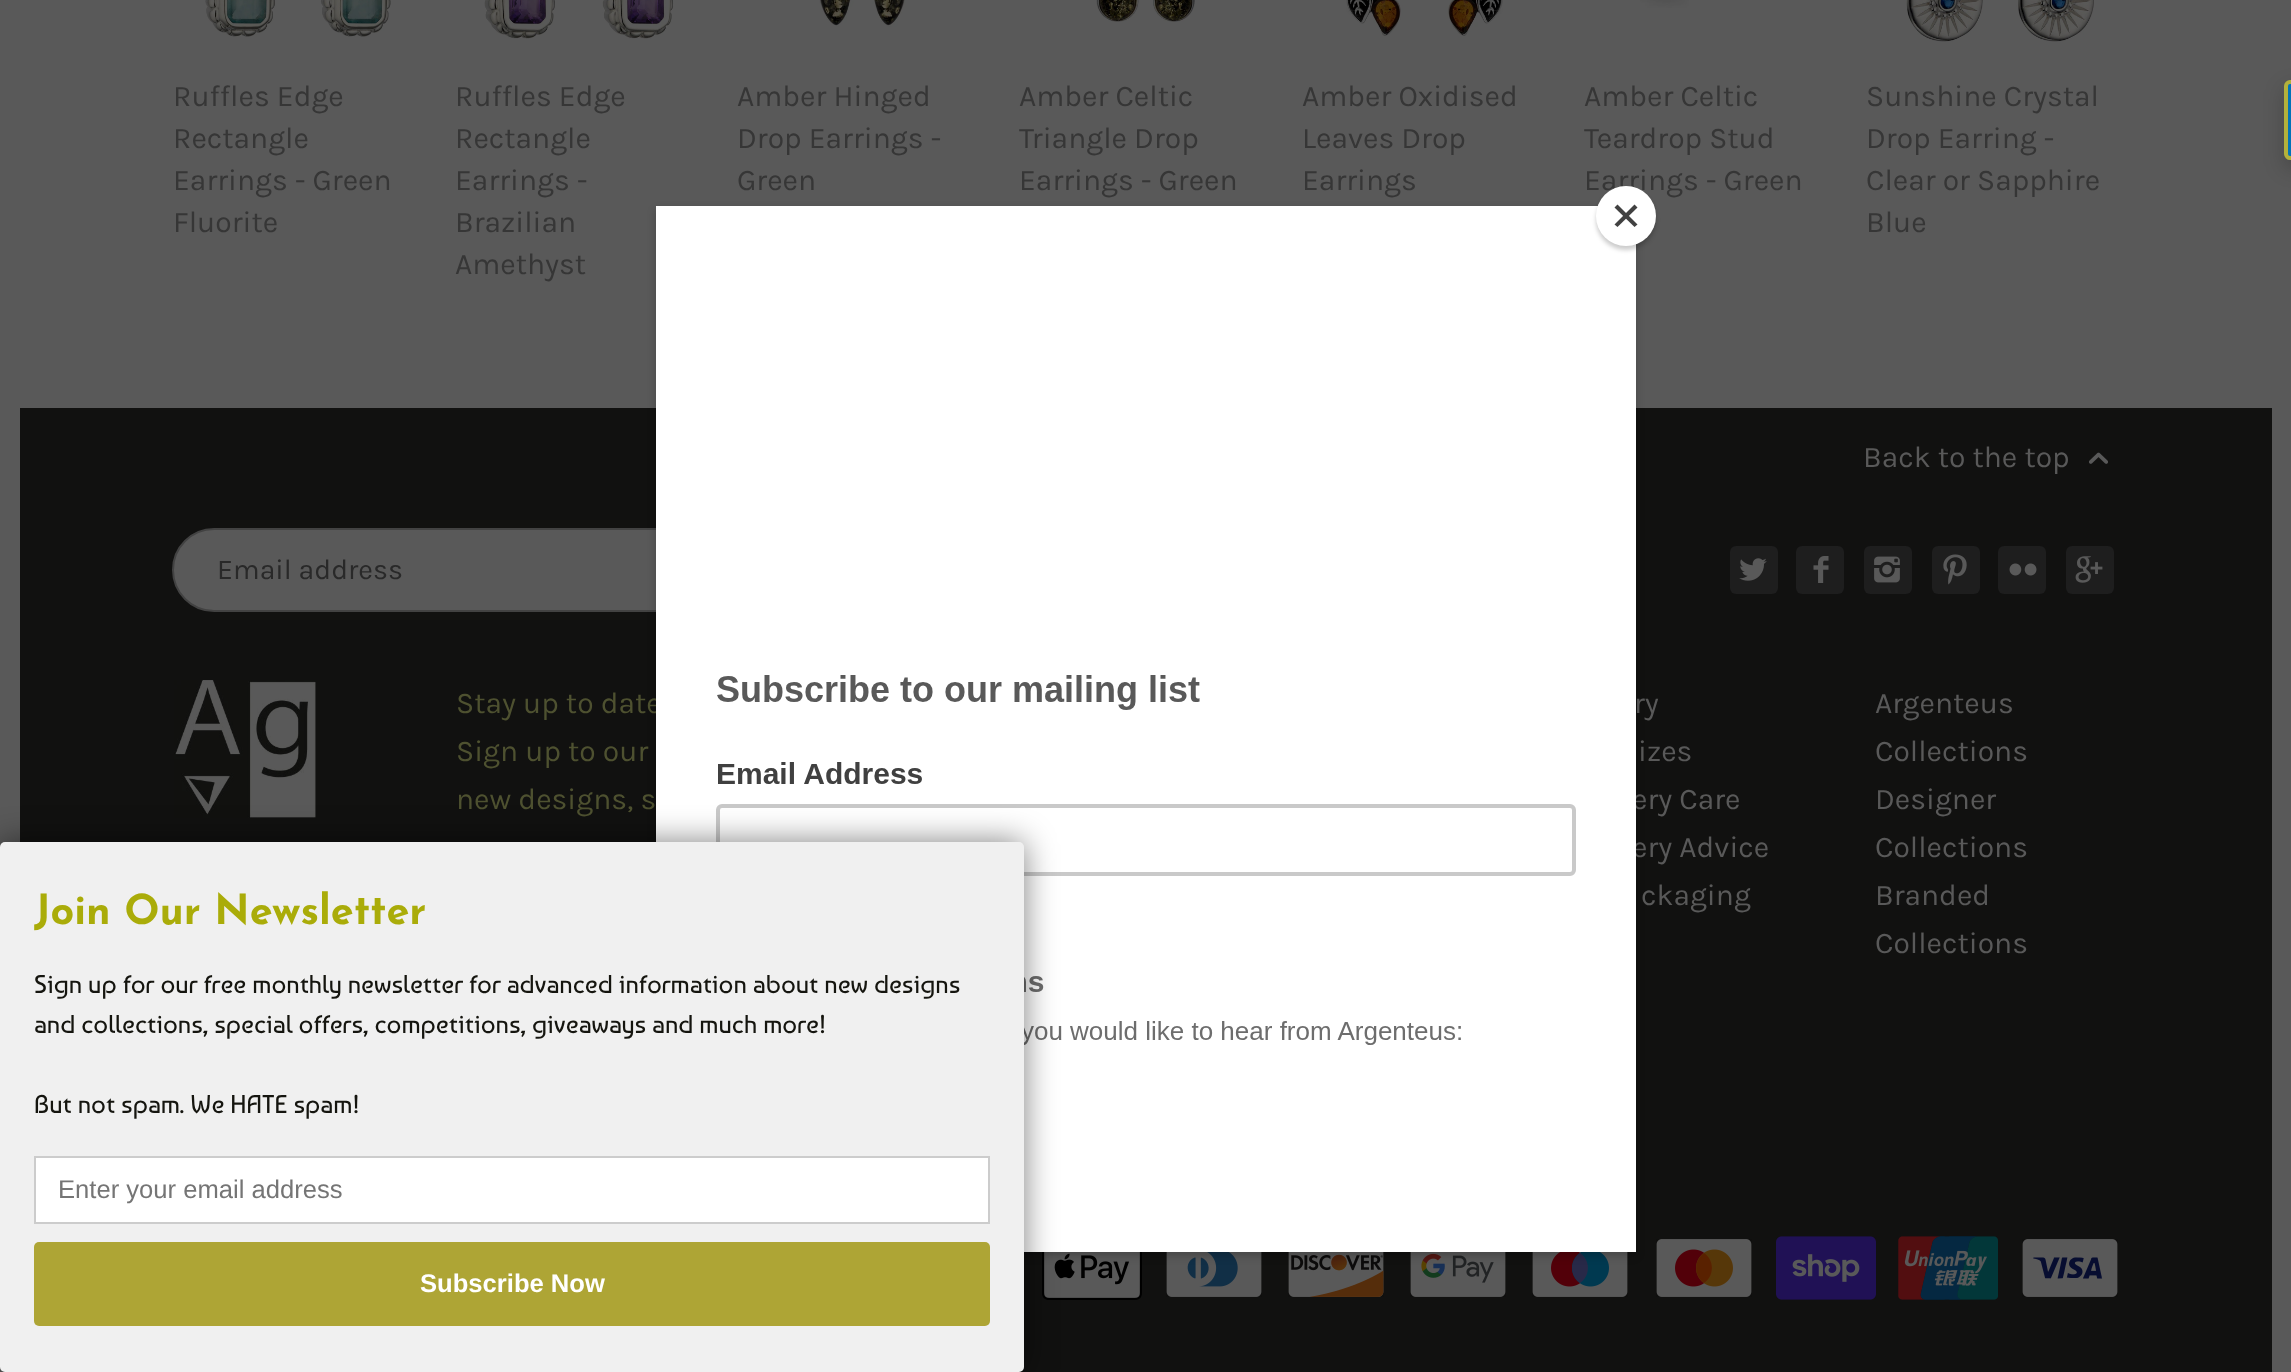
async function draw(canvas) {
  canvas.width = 2291;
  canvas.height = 1372;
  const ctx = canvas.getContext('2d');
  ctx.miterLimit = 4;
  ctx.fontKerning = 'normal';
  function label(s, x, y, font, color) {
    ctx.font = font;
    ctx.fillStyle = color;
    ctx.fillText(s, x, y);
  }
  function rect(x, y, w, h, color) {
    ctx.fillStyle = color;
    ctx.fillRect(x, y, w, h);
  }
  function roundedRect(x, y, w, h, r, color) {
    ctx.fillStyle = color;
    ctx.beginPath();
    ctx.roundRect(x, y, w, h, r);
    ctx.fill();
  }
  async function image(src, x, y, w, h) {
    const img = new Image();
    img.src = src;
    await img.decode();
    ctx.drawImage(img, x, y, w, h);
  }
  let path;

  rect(0, 0, 2291, 1372, '#111110');
  ctx.strokeStyle = '#595959';
  ctx.lineWidth = 20;
  ctx.strokeRect(10, -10, 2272, 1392);
  rect(20, 0, 2252, 408, '#595959');
  await image('assets/img1.png', 205, 0, 186, 37);
  label('Ruffles Edge', 173, 106, '30px Karla', '#363636');
  label('Rectangle', 173, 148, '30px Karla', '#363636');
  label('Earrings - Green', 173, 190, '30px Karla', '#363636');
  label('Fluorite', 173, 232, '30px Karla', '#363636');
  await image('assets/img2.png', 484, 0, 190, 39);
  label('Ruffles Edge', 455, 106, '30px Karla', '#363636');
  label('Rectangle', 455, 148, '30px Karla', '#363636');
  label('Earrings -', 455, 190, '30px Karla', '#363636');
  label('Brazilian', 455, 232, '30px Karla', '#363636');
  label('Amethyst', 455, 274, '30px Karla', '#363636');
  await image('assets/img3.png', 819, 0, 87, 27);
  label('Amber Hinged', 737, 106, '30px Karla', '#363636');
  label('Drop Earrings -', 737, 148, '30px Karla', '#363636');
  label('Green', 737, 190, '30px Karla', '#363636');
  await image('assets/img4.png', 1096, 0, 99, 22);
  label('Amber Celtic', 1019, 106, '30px Karla', '#363636');
  label('Triangle Drop', 1019, 148, '30px Karla', '#363636');
  label('Earrings - Green', 1019, 190, '30px Karla', '#363636');
  await image('assets/img5.png', 1346, 0, 157, 36);
  label('Amber Oxidised', 1302, 106, '30px Karla', '#363636');
  label('Leaves Drop', 1302, 148, '30px Karla', '#363636');
  label('Earrings', 1302, 190, '30px Karla', '#363636');
  await image('assets/img6.png', 1640, 0, 49, 8);
  label('Amber Celtic', 1584, 106, '30px Karla', '#363636');
  label('Teardrop Stud', 1584, 148, '30px Karla', '#363636');
  label('Earrings - Green', 1584, 190, '30px Karla', '#363636');
  await image('assets/img7.png', 1906, 0, 188, 42);
  label('Sunshine Crystal', 1866, 106, '30px Karla', '#363636');
  label('Drop Earring -', 1866, 148, '30px Karla', '#363636');
  label('Clear or Sapphire', 1866, 190, '30px Karla', '#363636');
  label('Blue', 1866, 232, '30px Karla', '#363636');
  label('Back to the top', 1863, 467, '30px Karla', '#595959');
  await image('assets/img8.png', 2088, 452, 20, 12);
  ctx.beginPath();
  ctx.roundRect(173, 529, 802, 82, 41);
  ctx.fill();
  ctx.strokeStyle = '#424242';
  ctx.lineWidth = 2;
  ctx.stroke();
  label('Email address', 217, 579, '28.5px Karla', '#292929');
  roundedRect(1730, 546, 48, 48, 6, '#1e1e1e');
  await image('assets/img9.png', 1739, 558, 28, 23);
  roundedRect(1796, 546, 48, 48, 6, '#1e1e1e');
  await image('assets/img10.png', 1813, 556, 16, 27);
  roundedRect(1864, 546, 48, 48, 6, '#1e1e1e');
  await image('assets/img11.png', 1874, 556, 26, 27);
  roundedRect(1932, 546, 48, 48, 6, '#1e1e1e');
  await image('assets/img12.png', 1943, 554, 24, 31);
  roundedRect(1998, 546, 48, 48, 6, '#1e1e1e');
  await image('assets/img13.png', 2009, 563, 28, 13);
  roundedRect(2066, 546, 48, 48, 6, '#1e1e1e');
  await image('assets/img14.png', 2075, 556, 28, 27);
  await image('assets/img15.png', 174, 680, 142, 138);
  label('Stay up to date', 456, 713, '30px Karla', '#4e5130');
  label('Sign up to our', 456, 761, '30px Karla', '#4e5130');
  label('new designs, s', 456, 809, '30px Karla', '#4e5130');
  label('ry', 1634, 713, '30px Karla', '#595959');
  label('izes', 1638, 761, '30px Karla', '#595959');
  label('ery Care', 1632, 809, '30px Karla', '#595959');
  label('ery Advice', 1632, 857, '30px Karla', '#595959');
  label('ckaging', 1641, 905, '30px Karla', '#595959');
  label('Argenteus', 1875, 713, '30px Karla', '#595959');
  label('Collections', 1875, 761, '30px Karla', '#595959');
  label('Designer', 1875, 809, '30px Karla', '#595959');
  label('Collections', 1875, 857, '30px Karla', '#595959');
  label('Branded', 1875, 905, '30px Karla', '#595959');
  label('Collections', 1875, 953, '30px Karla', '#595959');
  await image('assets/img16.png', 1042, 1252, 100, 48);
  await image('assets/img17.png', 1166, 1252, 96, 45);
  await image('assets/img18.png', 1288, 1252, 96, 45);
  await image('assets/img19.png', 1410, 1252, 96, 45);
  await image('assets/img20.png', 1532, 1252, 96, 45);
  await image('assets/img21.png', 1656, 1239, 96, 58);
  await image('assets/img22.png', 1776, 1236, 100, 64);
  await image('assets/img23.png', 1898, 1236, 100, 64);
  await image('assets/img24.png', 2022, 1239, 96, 58);
  ctx.fillStyle = '#00000033';
  ctx.filter = 'blur(10px)';
  ctx.beginPath();
  ctx.roundRect(2284, 88, 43, 80, 6);
  ctx.fill();
  ctx.filter = 'none';
  ctx.fillStyle = '#0073b7';
  path = new Path2D('M2290 82H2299V158H2290C2288 158 2286 156 2286 154V86C2286 84 2288 82 2290 82Z');
  ctx.fill(path);
  ctx.strokeStyle = '#b3b13b';
  ctx.lineWidth = 4;
  ctx.stroke(path);
  ctx.fillStyle = '#00000033';
  ctx.filter = 'blur(4px)';
  ctx.beginPath();
  ctx.rect(656, 210, 980, 1046);
  ctx.fill();
  ctx.filter = 'none';
  await image('assets/img25.png', 656, 206, 980, 1046);
  ctx.fillStyle = '#00000080';
  ctx.filter = 'blur(16px)';
  ctx.beginPath();
  ctx.roundRect(0, 842, 1024, 530, 5);
  ctx.fill();
  ctx.filter = 'none';
  roundedRect(0, 842, 1024, 530, 5, '#f0f0f0');
  label('Join Our Newsletter', 34, 924, 'bold 41.5px Josefin Sans', '#aaac09');
  label('Sign up for our free monthly newsletter for advanced information about new designs', 34, 993, '25.6px Baumans', '#15150f');
  label('and collections, special offers, competitions, giveaways and much more!', 34, 1033, '25.6px Baumans', '#15150f');
  label('But not spam. We HATE spam!', 34, 1113, '25.6px Baumans', '#15150f');
  ctx.fillStyle = '#fff';
  ctx.beginPath();
  ctx.rect(35, 1157, 954, 66);
  ctx.fill();
  ctx.strokeStyle = '#ccc';
  ctx.lineWidth = 2;
  ctx.stroke();
  label('Enter your email address', 58, 1198, '25.6px Liberation Sans', '#757575');
  roundedRect(34, 1242, 956, 84, 5, '#aea535');
  label('Subscribe Now', 420, 1292, 'bold 25.6px Liberation Sans', '#fff');
  ctx.fillStyle = '#00000033';
  ctx.filter = 'blur(2px)';
  ctx.beginPath();
  ctx.roundRect(1596, 190, 60, 60, 30);
  ctx.fill();
  ctx.filter = 'none';
  ctx.fillStyle = '#fff';
  ctx.beginPath();
  ctx.arc(1626, 216, 30, 0, 2 * Math.PI);
  ctx.fill();
  ctx.fillStyle = '#414141';
  path = new Path2D('M1634.5 204.5L1637.5 207.5L1617.5 227L1614.5 224.5Z');
  ctx.fill(path);
  path = new Path2D('M1614.5 207.5L1617.5 204.5L1637.5 224.5L1634.5 227Z');
  ctx.fill(path);
}

draw(document.querySelector('canvas'));
